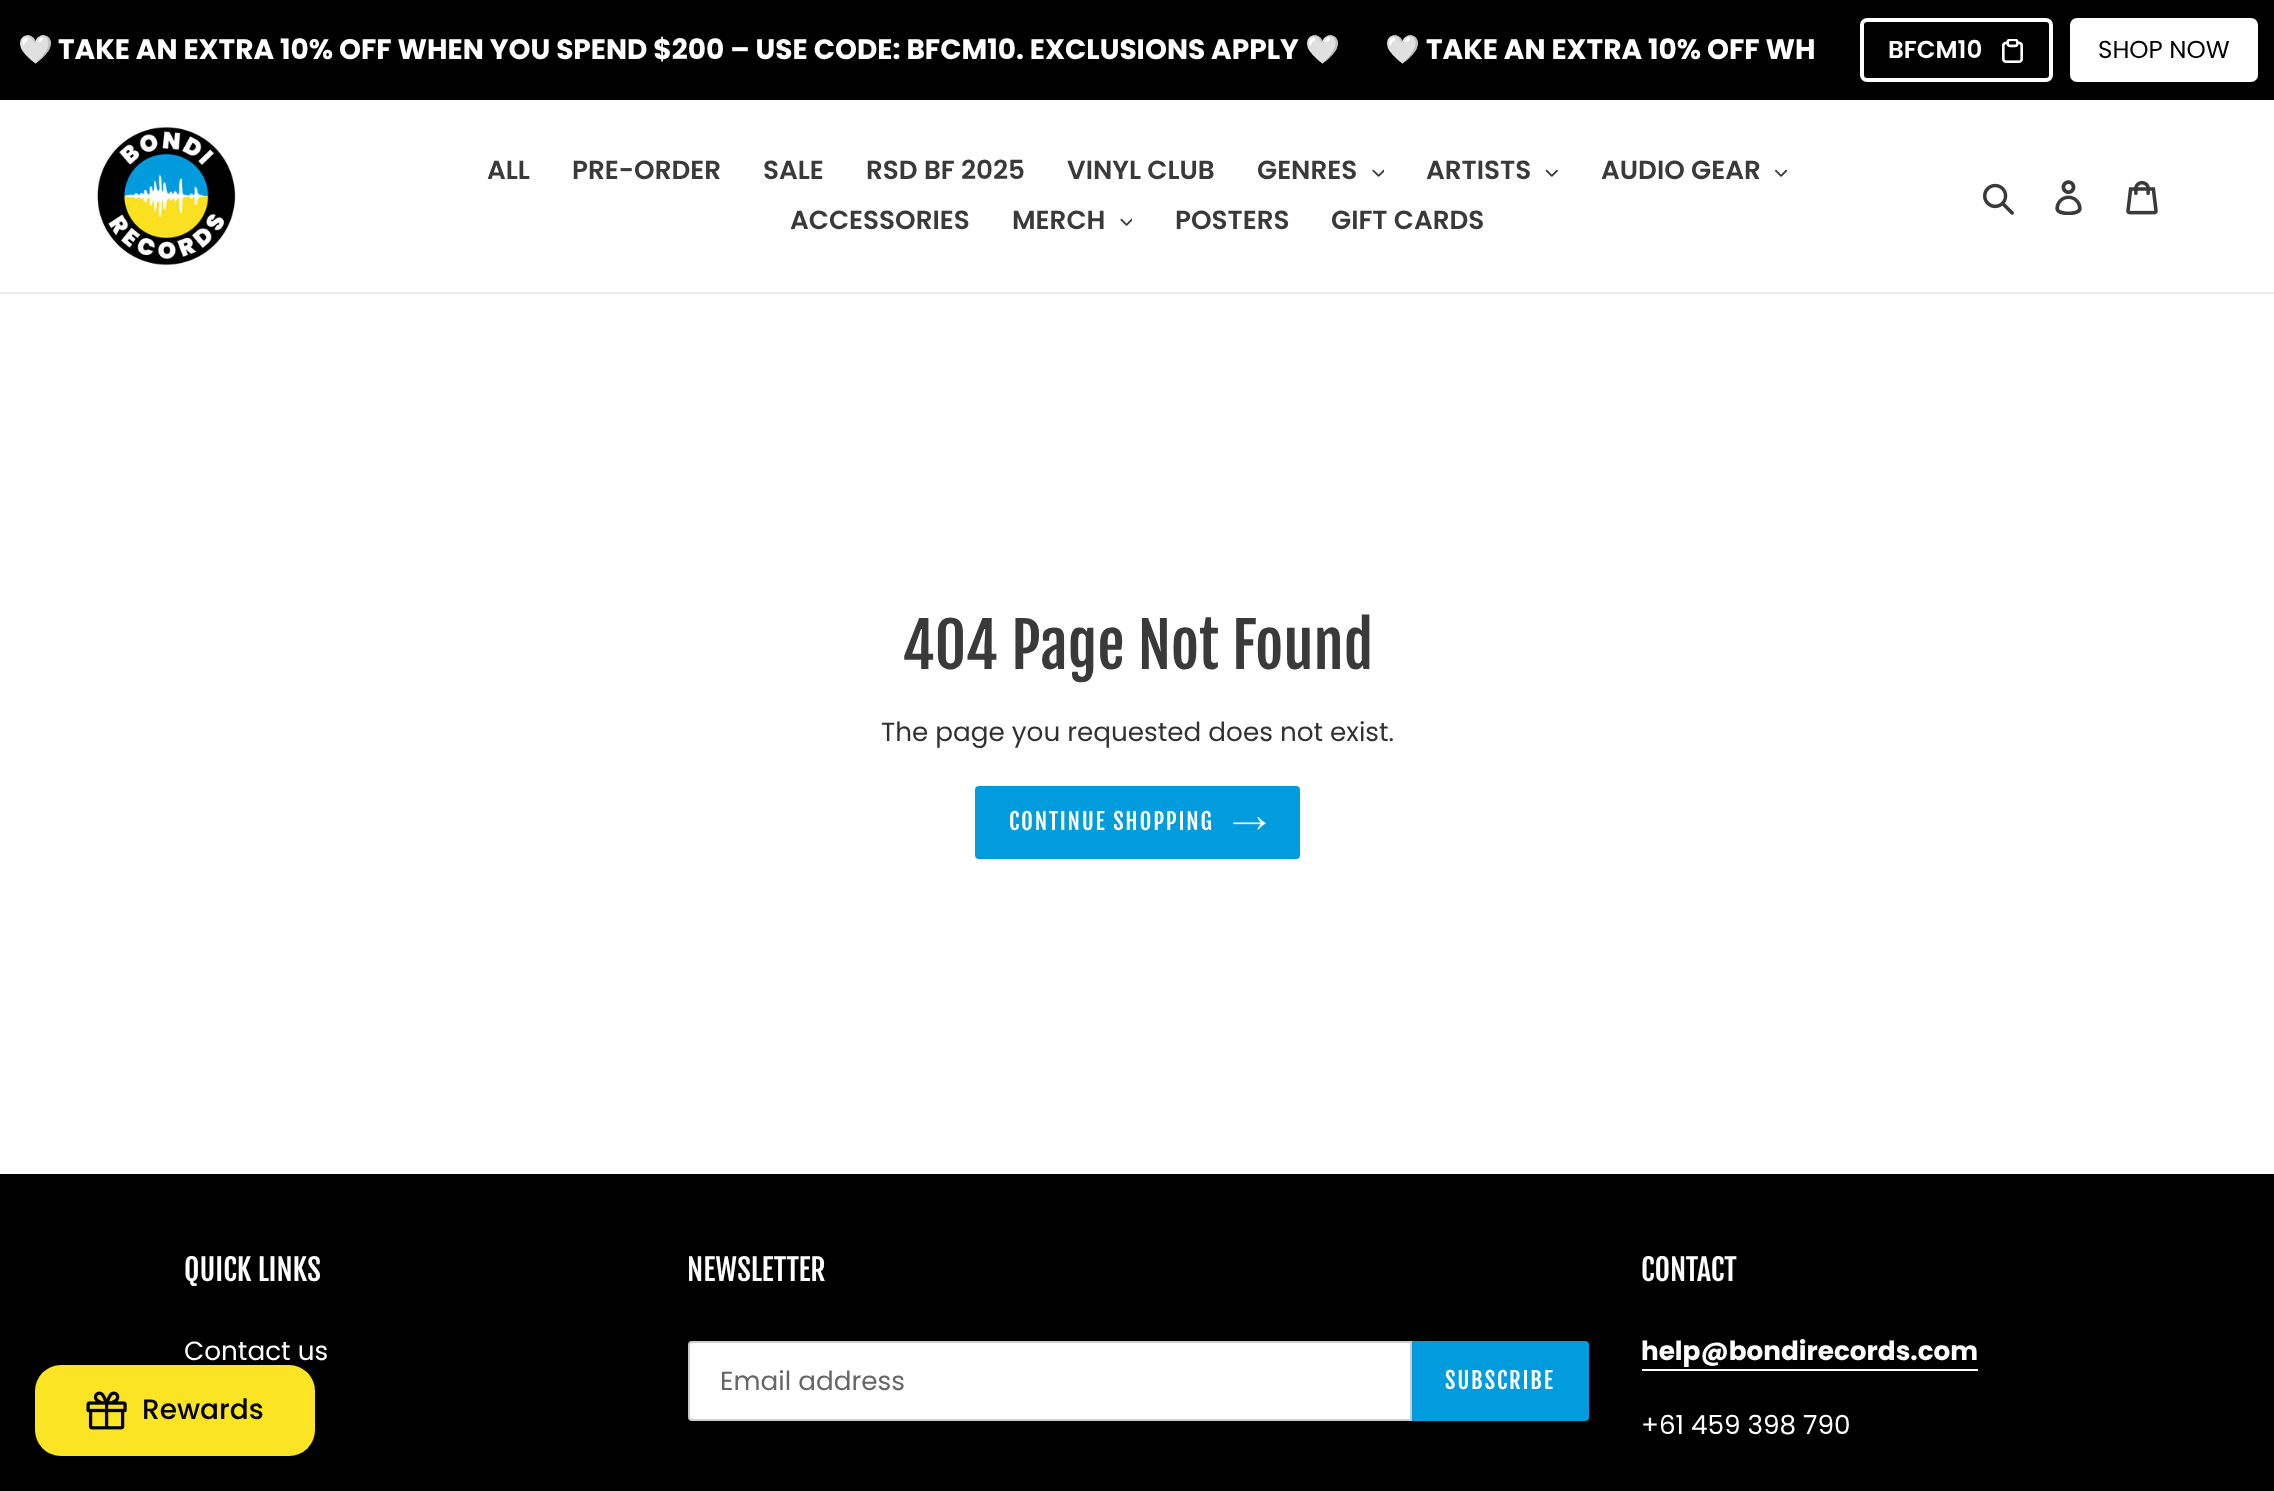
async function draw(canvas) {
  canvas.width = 2274;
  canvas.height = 1491;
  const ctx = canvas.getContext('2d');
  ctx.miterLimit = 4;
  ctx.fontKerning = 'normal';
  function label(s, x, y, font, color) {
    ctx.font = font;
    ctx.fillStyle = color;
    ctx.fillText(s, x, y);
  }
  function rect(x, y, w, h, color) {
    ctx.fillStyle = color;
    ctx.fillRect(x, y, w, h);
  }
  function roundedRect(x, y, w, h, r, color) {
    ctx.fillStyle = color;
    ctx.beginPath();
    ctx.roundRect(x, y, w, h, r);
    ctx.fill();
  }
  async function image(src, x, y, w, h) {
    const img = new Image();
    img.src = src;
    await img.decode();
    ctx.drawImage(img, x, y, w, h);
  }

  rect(0, 0, 2274, 1491, '#fff');
  rect(0, 0, 2274, 100, '#000');
  ctx.save();
  ctx.beginPath();
  ctx.rect(18, 33, 1797, 34);
  ctx.clip();
  label('🤍', 18, 59, 'bold 28px Noto Color Emoji', '#fff');
  ctx.restore();
  label('TAKE AN EXTRA 10% OFF WHEN YOU SPEND $200 – USE CODE: BFCM10. EXCLUSIONS APPLY', 58, 59, 'bold 28px Poppins', '#fff');
  label('🤍', 1305, 59, 'bold 28px Noto Color Emoji', '#fff');
  label('🤍', 1385, 59, 'bold 28px Noto Color Emoji', '#fff');
  label('TAKE AN EXTRA 10% OFF WH', 1426, 59, 'bold 28px Poppins', '#fff');
  ctx.beginPath();
  ctx.roundRect(1862, 20, 189, 60, 5);
  ctx.strokeStyle = '#fff';
  ctx.lineWidth = 4;
  ctx.stroke();
  label('BFCM10', 1888, 58, '600 24.5px Poppins', '#fff');
  await image('assets/img1.png', 2002, 39, 21, 24);
  roundedRect(2070, 18, 188, 64, 7, '#fff');
  label('SHOP NOW', 2098, 58, '24.5px Poppins', '#000');
  rect(0, 292, 2274, 2, '#ebebeb');
  await image('assets/img2.png', 97, 126, 139, 140);
  label('ALL', 487, 179, '600 26.25px Poppins', '#3a3a3a');
  label('PRE-ORDER', 572, 179, '600 26.25px Poppins', '#3a3a3a');
  label('SALE', 763, 179, '600 26.25px Poppins', '#3a3a3a');
  label('RSD BF 2025', 866, 179, '600 26.25px Poppins', '#3a3a3a');
  label('VINYL CLUB', 1067, 179, '600 26.25px Poppins', '#3a3a3a');
  label('GENRES', 1257, 179, '600 26.25px Poppins', '#3a3a3a');
  await image('assets/img3.png', 1372, 169, 12, 8);
  label('ARTISTS', 1426, 179, '600 26.25px Poppins', '#3a3a3a');
  await image('assets/img4.png', 1545, 169, 13, 8);
  label('AUDIO GEAR', 1601, 179, '600 26.25px Poppins', '#3a3a3a');
  await image('assets/img5.png', 1775, 169, 12, 8);
  label('ACCESSORIES', 790, 229, '600 26.25px Poppins', '#3a3a3a');
  label('MERCH', 1012, 229, '600 26.25px Poppins', '#3a3a3a');
  await image('assets/img3.png', 1120, 218, 12, 8);
  label('POSTERS', 1175, 229, '600 26.25px Poppins', '#3a3a3a');
  label('GIFT CARDS', 1331, 229, '600 26.25px Poppins', '#3a3a3a');
  await image('assets/img6.png', 1983, 183, 31, 32);
  await image('assets/img7.png', 2055, 180, 27, 35);
  await image('assets/img8.png', 2126, 181, 32, 34);
  label('404 Page Not Found', 902, 669, '61.25px Fjalla One', '#3a3a3a');
  label('The page you requested does not exist.', 881, 741, '26.25px Poppins', '#333232');
  roundedRect(975, 786, 325, 73, 4, '#009cde');
  ctx.letterSpacing = '1.8px';
  label('CONTINUE SHOPPING', 1009, 830, '22.75px Fjalla One', '#fff');
  await image('assets/img9.png', 1233, 817, 33, 13);
  rect(0, 1174, 2274, 317, '#000');
  ctx.letterSpacing = '0px';
  label('QUICK LINKS', 184, 1281, '29.75px Fjalla One', '#fff');
  label('Contact us', 184, 1360, '26.25px Poppins', '#fff');
  label('NEWSLETTER', 687, 1281, '29.75px Fjalla One', '#fff');
  ctx.beginPath();
  ctx.roundRect(689, 1342, 722, 78, [3, 0, 0, 3]);
  ctx.fill();
  ctx.strokeStyle = '#ccc';
  ctx.lineWidth = 2;
  ctx.stroke();
  label('Email address', 720, 1390, '26.25px Poppins', '#666');
  ctx.fillStyle = '#009cde';
  ctx.beginPath();
  ctx.roundRect(1412, 1341, 177, 80, [0, 4, 4, 0]);
  ctx.fill();
  ctx.letterSpacing = '1.8px';
  label('SUBSCRIBE', 1445, 1389, '22.75px Fjalla One', '#fff');
  ctx.letterSpacing = '0px';
  label('CONTACT', 1641, 1281, '29.75px Fjalla One', '#fff');
  label('help@bondirecords.com', 1641, 1360, 'bold 26.25px Poppins', '#fff');
  rect(1642, 1369, 336, 2, '#fff');
  label('+61 459 398 790', 1641, 1434, '26.25px Poppins', '#fff');
  roundedRect(35, 1365, 280, 91, 26, '#fbe424');
  await image('assets/img10.png', 86, 1391, 41, 39);
  label('Rewards', 142, 1419, '500 28px Poppins', '#000');
}

draw(document.querySelector('canvas'));
